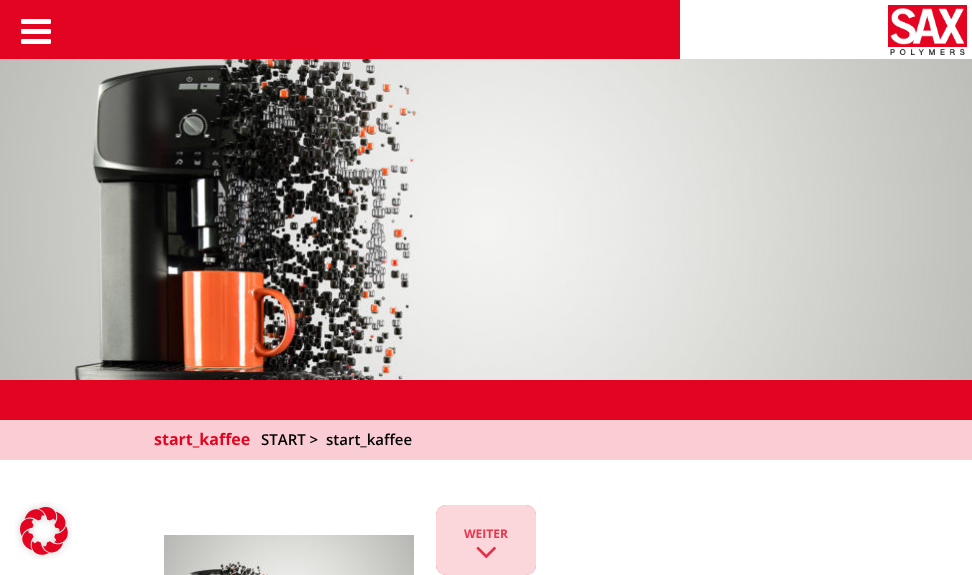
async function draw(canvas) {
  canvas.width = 972;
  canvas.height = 575;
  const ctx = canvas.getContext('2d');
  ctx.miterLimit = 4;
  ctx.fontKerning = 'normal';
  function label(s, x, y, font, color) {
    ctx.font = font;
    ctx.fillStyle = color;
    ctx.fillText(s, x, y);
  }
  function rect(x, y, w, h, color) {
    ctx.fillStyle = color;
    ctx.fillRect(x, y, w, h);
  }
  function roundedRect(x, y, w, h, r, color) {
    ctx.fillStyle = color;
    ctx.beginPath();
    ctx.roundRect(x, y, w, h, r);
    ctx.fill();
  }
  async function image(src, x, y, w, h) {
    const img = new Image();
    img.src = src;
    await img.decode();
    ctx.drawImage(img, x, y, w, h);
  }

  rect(0, 0, 972, 575, '#fff');
  rect(0, 0, 680, 59, '#e30421');
  await image('assets/img1.png', 21, 19, 30, 25);
  await image('assets/img2.png', 888, 5, 79, 50);
  await image('assets/img3.png', 0, 59, 972, 321);
  rect(0, 380, 972, 40, '#e30421');
  rect(0, 420, 972, 40, '#f9cdd3');
  label('start_kaffee', 154, 445, 'bold 16px Open Sans', '#e30421');
  label('START >', 261, 445, '600 15px Open Sans', '#000');
  label('start_kaffee', 326, 445, '600 15px Open Sans', '#000');
  await image('assets/img4.png', 164, 535, 250, 40);
  await image('assets/img5.png', 15, 502, 57, 57);
  roundedRect(436, 505, 100, 70, 10, '#e9364d');
  roundedRect(436, 505, 100, 70, 10, '#ffffffcc');
  label('WEITER', 464, 538, 'bold 12px Open Sans', '#e9364d');
  await image('assets/img6.png', 476, 546, 20, 13);
}

draw(document.querySelector('canvas'));
